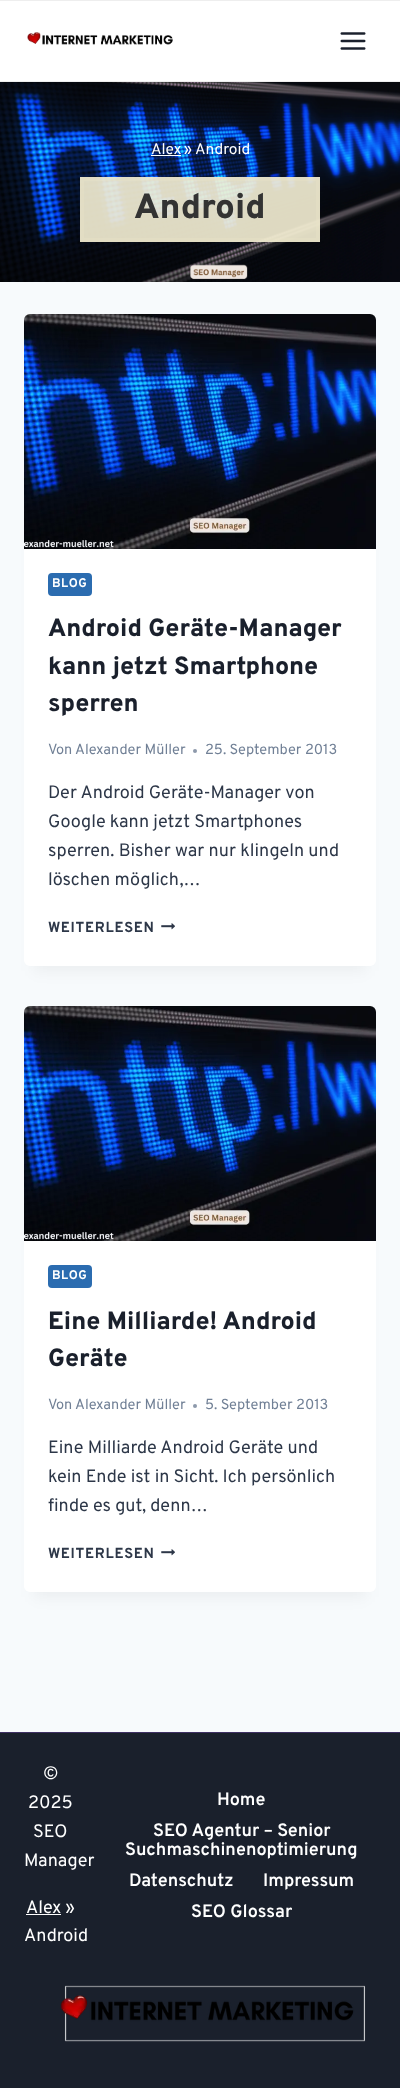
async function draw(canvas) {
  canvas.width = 400;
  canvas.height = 2088;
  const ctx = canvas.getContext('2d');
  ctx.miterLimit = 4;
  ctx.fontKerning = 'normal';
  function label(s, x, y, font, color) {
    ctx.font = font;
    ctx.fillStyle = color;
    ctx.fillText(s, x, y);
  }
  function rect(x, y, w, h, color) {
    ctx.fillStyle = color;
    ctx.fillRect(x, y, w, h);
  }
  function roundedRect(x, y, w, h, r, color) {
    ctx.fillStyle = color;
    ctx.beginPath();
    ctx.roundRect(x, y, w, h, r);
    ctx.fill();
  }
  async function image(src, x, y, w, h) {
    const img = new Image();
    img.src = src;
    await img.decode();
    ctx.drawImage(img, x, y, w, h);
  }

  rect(0, 0, 400, 2088, '#f7fafc');
  rect(0, 1, 400, 80, '#fff');
  rect(0, 0, 400, 1, '#eee');
  rect(0, 81, 400, 1, '#eee');
  await image('assets/img1.png', 27, 32, 146, 13);
  await image('assets/img2.png', 340, 32, 26, 18);
  await image('assets/img3.png', 0, 82, 400, 200);
  label('Alex', 151, 154, '15.5px Overpass', '#fff');
  rect(151, 155, 30, 1, '#fff');
  label('»', 184, 154, '15.5px Overpass', '#fff');
  label('Android', 195, 154, '15.5px Overpass', '#fff');
  rect(80, 177, 240, 65, '#f6f1d5e6');
  ctx.strokeStyle = '#ebe6c757';
  ctx.lineWidth = 4;
  ctx.strokeRect(82, 179, 236, 61);
  label('Android', 134, 218, '800 35px Overpass', '#333');
  ctx.fillStyle = '#0000000d';
  ctx.filter = 'blur(7.5px)';
  ctx.beginPath();
  ctx.rect(34, 339, 332, 632);
  ctx.fill();
  ctx.filter = 'none';
  roundedRect(24, 314, 352, 652, 6, '#fff');
  await image('assets/img4.png', 24, 314, 352, 235);
  roundedRect(48, 573, 44, 23, 4, '#2b6cb0');
  ctx.letterSpacing = '0.5px';
  label('BLOG', 52, 587, 'bold 12.5px Overpass', '#fff');
  ctx.letterSpacing = '0px';
  label('Android Geräte-Manager', 48, 636, '800 25px Overpass', '#1a202c');
  label('kann jetzt Smartphone', 48, 674, '800 25px Overpass', '#1a202c');
  label('sperren', 48, 711, '800 25px Overpass', '#1a202c');
  label('Von Alexander Müller', 48, 754, '14.5px Overpass', '#718096');
  ctx.fillStyle = '#8d99ab';
  ctx.beginPath();
  ctx.arc(195, 751, 2, 0, 2 * Math.PI);
  ctx.fill();
  label('25. September 2013', 205, 754, '14.5px Overpass', '#718096');
  label('Der Android Geräte-Manager von', 48, 798, '18px Overpass', '#2d3748');
  label('Google kann jetzt Smartphones', 48, 827, '18px Overpass', '#2d3748');
  label('sperren. Bisher war nur klingeln und', 48, 856, '18px Overpass', '#2d3748');
  label('löschen möglich,…', 48, 885, '18px Overpass', '#2d3748');
  ctx.letterSpacing = '0.75px';
  label('WEITERLESEN', 48, 932, 'bold 14.5px Overpass', '#2d3748');
  await image('assets/img5.png', 161, 923, 14, 7);
  ctx.fillStyle = '#0000000d';
  ctx.filter = 'blur(7.5px)';
  ctx.beginPath();
  ctx.rect(34, 1031, 332, 566);
  ctx.fill();
  ctx.filter = 'none';
  roundedRect(24, 1006, 352, 586, 6, '#fff');
  await image('assets/img4.png', 24, 1006, 352, 235);
  roundedRect(48, 1265, 44, 23, 4, '#2b6cb0');
  ctx.letterSpacing = '0.5px';
  label('BLOG', 52, 1279, 'bold 12.5px Overpass', '#fff');
  ctx.letterSpacing = '0px';
  label('Eine Milliarde! Android', 48, 1329, '800 25px Overpass', '#1a202c');
  label('Geräte', 48, 1366, '800 25px Overpass', '#1a202c');
  label('Von Alexander Müller', 48, 1409, '14.5px Overpass', '#718096');
  ctx.fillStyle = '#8d99ab';
  ctx.beginPath();
  ctx.arc(195, 1406, 2, 0, 2 * Math.PI);
  ctx.fill();
  label('5. September 2013', 205, 1409, '14.5px Overpass', '#718096');
  label('Eine Milliarde Android Geräte und', 48, 1453, '18px Overpass', '#2d3748');
  label('kein Ende ist in Sicht. Ich persönlich', 48, 1482, '18px Overpass', '#2d3748');
  label('finde es gut, denn…', 48, 1511, '18px Overpass', '#2d3748');
  ctx.letterSpacing = '0.75px';
  label('WEITERLESEN', 48, 1558, 'bold 14.5px Overpass', '#2d3748');
  await image('assets/img5.png', 161, 1549, 14, 7);
  rect(0, 1733, 400, 355, '#1a202c');
  rect(0, 1732, 400, 1, '#3e3063');
  ctx.letterSpacing = '0px';
  label('©', 43, 1779, '18px Overpass', '#fff');
  label('2025', 28, 1808, '18px Overpass', '#fff');
  label('SEO', 33, 1837, '18px Overpass', '#fff');
  label('Manager', 24, 1866, '18px Overpass', '#fff');
  label('Alex »', 26, 1913, '18px Overpass', '#fff');
  rect(26, 1914, 35, 1, '#fff');
  label('Android', 24, 1941, '18px Overpass', '#fff');
  label('Home', 217, 1805, '600 18px Overpass', '#fff');
  label('SEO Agentur – Senior', 153, 1836, '600 18px Overpass', '#fff');
  label('Suchmaschinenoptimierung', 125, 1855, '600 18px Overpass', '#fff');
  label('Datenschutz', 129, 1886, '600 18px Overpass', '#fff');
  label('Impressum', 263, 1886, '600 18px Overpass', '#fff');
  label('SEO Glossar', 191, 1917, '600 18px Overpass', '#fff');
  await image('assets/img6.png', 60, 1985, 306, 57);
}

draw(document.querySelector('canvas'));
